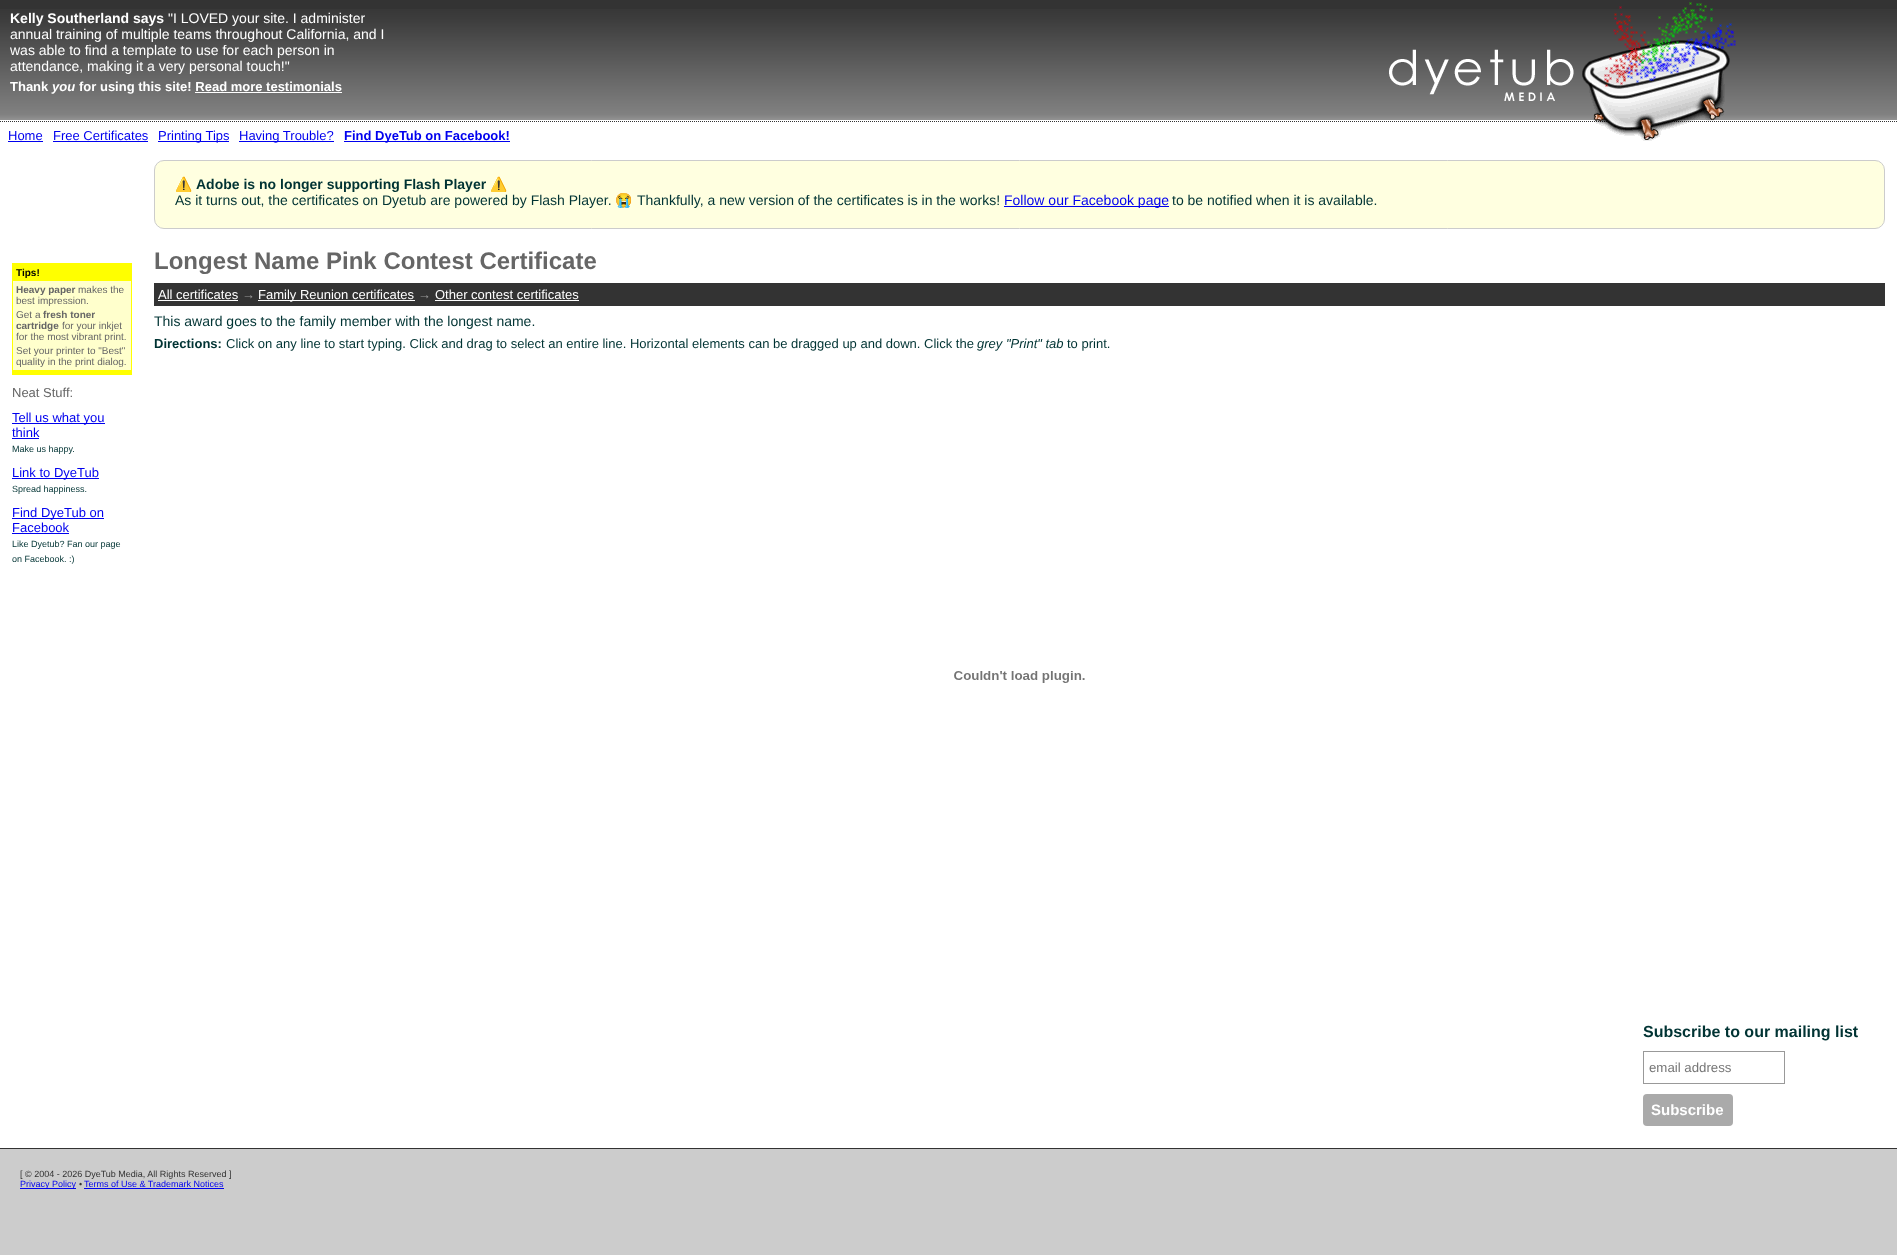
async function draw(canvas) {
  canvas.width = 1897;
  canvas.height = 1255;
  const ctx = canvas.getContext('2d');
  ctx.miterLimit = 4;
  ctx.fontKerning = 'normal';
  function label(s, x, y, font, color) {
    ctx.font = font;
    ctx.fillStyle = color;
    ctx.fillText(s, x, y);
  }
  function rect(x, y, w, h, color) {
    ctx.fillStyle = color;
    ctx.fillRect(x, y, w, h);
  }
  function roundedRect(x, y, w, h, r, color) {
    ctx.fillStyle = color;
    ctx.beginPath();
    ctx.roundRect(x, y, w, h, r);
    ctx.fill();
  }
  async function image(src, x, y, w, h) {
    const img = new Image();
    img.src = src;
    await img.decode();
    ctx.drawImage(img, x, y, w, h);
  }
  let path;

  rect(0, 0, 1897, 1255, '#ccc');
  rect(0, 0, 1897, 9, '#333');
  await image('assets/img1.png', 0, 9, 1897, 111);
  rect(0, 120, 1897, 1028, '#fff');
  path = new Path2D('M0 121.5H1897');
  ctx.strokeStyle = '#333';
  ctx.setLineDash([1, 1]);
  ctx.stroke(path);
  await image('assets/img2.png', 1389, 2, 347, 139);
  label('Kelly Southerland says', 10, 23, 'bold 14px Liberation Sans', '#fff');
  label('"I LOVED your site. I administer', 168, 23, '14px Liberation Sans', '#fff');
  label('annual training of multiple teams throughout California, and I', 10, 39, '14px Liberation Sans', '#fff');
  label('was able to find a template to use for each person in', 10, 55, '14px Liberation Sans', '#fff');
  label('attendance, making it a very personal touch!"', 10, 71, '14px Liberation Sans', '#fff');
  label('Thank', 10, 91, 'bold 13px Liberation Sans', '#fff');
  label('you', 52, 91, 'italic bold 13px Liberation Sans', '#fff');
  label('for using this site! Read more testimonials', 79, 91, 'bold 13px Liberation Sans', '#fff');
  rect(195, 92, 147, 1, '#fff');
  rect(0, 1148, 1897, 1, '#333');
  label('Home', 8, 140, '13px Liberation Sans', '#00e');
  rect(8, 141, 35, 1, '#00e');
  label('Free Certificates', 53, 140, '13px Liberation Sans', '#00e');
  rect(53, 141, 95, 1, '#00e');
  rect(158, 141, 71, 1, '#00e');
  label('Printing Tips', 158, 140, '13px Liberation Sans', '#00e');
  rect(239, 141, 95, 1, '#00e');
  label('Having Trouble?', 239, 140, '13px Liberation Sans', '#00e');
  rect(344, 141, 166, 1, '#00e');
  label('Find DyeTub on Facebook!', 344, 140, 'bold 13px Liberation Sans', '#00e');
  rect(13, 281, 118, 89, '#ffc');
  rect(12, 263, 120, 1, '#ff0');
  rect(131, 263, 1, 112, '#ff0');
  rect(12, 370, 120, 5, '#ff0');
  rect(12, 263, 1, 112, '#ff0');
  rect(13, 264, 118, 17, '#ff0');
  label('Tips!', 16, 276, 'bold 10px Liberation Sans', '#000');
  label('Heavy paper', 16, 293, 'bold 10px Liberation Sans', '#666');
  label('makes the', 78, 293, '10px Liberation Sans', '#666');
  label('best impression.', 16, 304, '10px Liberation Sans', '#666');
  label('Get a', 16, 318, '10px Liberation Sans', '#666');
  label('fresh toner', 43, 318, 'bold 10px Liberation Sans', '#666');
  label('cartridge', 16, 329, 'bold 10px Liberation Sans', '#666');
  label('for your inkjet', 62, 329, '10px Liberation Sans', '#666');
  label('for the most vibrant print.', 16, 340, '10px Liberation Sans', '#666');
  label('Set your printer to "Best"', 16, 354, '10px Liberation Sans', '#666');
  label('quality in the print dialog.', 16, 365, '10px Liberation Sans', '#666');
  label('Neat Stuff:', 12, 397, '13px Liberation Sans', '#666');
  rect(12, 423, 93, 1, '#00e');
  label('Tell us what you', 12, 422, '13px Liberation Sans', '#00e');
  label('think', 12, 437, '13px Liberation Sans', '#00e');
  rect(12, 438, 27, 1, '#00e');
  label('Make us happy.', 12, 452, '9px Liberation Sans', '#033');
  rect(12, 478, 87, 1, '#00e');
  label('Link to DyeTub', 12, 477, '13px Liberation Sans', '#00e');
  label('Spread happiness.', 12, 492, '9px Liberation Sans', '#033');
  rect(12, 518, 92, 1, '#00e');
  label('Find DyeTub on', 12, 517, '13px Liberation Sans', '#00e');
  label('Facebook', 12, 532, '13px Liberation Sans', '#00e');
  rect(12, 533, 57, 1, '#00e');
  label('Like Dyetub? Fan our page', 12, 547, '9px Liberation Sans', '#033');
  label('on Facebook. :)', 12, 562, '9px Liberation Sans', '#033');
  ctx.fillStyle = '#ffffe0';
  ctx.beginPath();
  ctx.roundRect(154.5, 160.5, 1730, 68, 9.5);
  ctx.fill();
  ctx.strokeStyle = '#ccc';
  ctx.setLineDash([]);
  ctx.stroke();
  label('⚠️', 175, 189, 'bold 14px Noto Color Emoji', '#033');
  label('Adobe is no longer supporting Flash Player', 196, 189, 'bold 14px Liberation Sans', '#033');
  label('⚠️', 490, 189, 'bold 14px Noto Color Emoji', '#033');
  label('As it turns out, the certificates on Dyetub are powered by Flash Player.', 175, 205, '14px Liberation Sans', '#033');
  label('😭', 615, 205, '14px Noto Color Emoji', '#033');
  label('Thankfully, a new version of the certificates is in the works!', 637, 205, '14px Liberation Sans', '#033');
  rect(1004, 206, 165, 1, '#00e');
  label('Follow our Facebook page', 1004, 205, '14px Liberation Sans', '#00e');
  label('to be notified when it is available.', 1172, 205, '14px Liberation Sans', '#033');
  label('Longest Name Pink Contest Certificate', 154, 269, 'bold 24px Liberation Sans', '#666');
  rect(154, 283, 1731, 23, '#333');
  label('All certificates', 158, 299, '13px Liberation Sans', '#fff');
  rect(158, 300, 80, 1, '#fff');
  label('→', 242, 299, '13px Liberation Sans', '#999');
  rect(258, 300, 157, 1, '#fff');
  label('Family Reunion certificates', 258, 299, '13px Liberation Sans', '#fff');
  label('→', 418, 299, '13px Liberation Sans', '#999');
  label('Other contest certificates', 435, 299, '13px Liberation Sans', '#fff');
  rect(435, 300, 144, 1, '#fff');
  label('This award goes to the family member with the longest name.', 154, 326, '14px Liberation Sans', '#033');
  label('Directions:', 154, 348, 'bold 13px Liberation Sans', '#033');
  label('Click on any line to start typing. Click and drag to select an entire line. Horizontal elements can be dragged up and down. Click the', 226, 348, '13px Liberation Sans', '#033');
  label('grey "Print" tab', 977, 348, 'italic 13px Liberation Sans', '#033');
  label('to print.', 1067, 348, '13px Liberation Sans', '#033');
  await image('assets/img3.png', 954, 671, 131, 12);
  label('Subscribe to our mailing list', 1643, 1037, 'bold 16px Liberation Sans', '#033');
  ctx.strokeStyle = '#999';
  ctx.strokeRect(1643.5, 1051.5, 141, 32);
  label('email address', 1649, 1072, '13.25px Liberation Sans', '#757575');
  roundedRect(1643, 1094, 90, 32, 4, '#aaa');
  label('Subscribe', 1651, 1115, 'bold 15px Liberation Sans', '#fff');
  label('[ © 2004 - 2026 DyeTub Media, All Rights Reserved ]', 20, 1177, '9px Liberation Sans', '#333');
  rect(20, 1188, 56, 1, '#00e');
  label('Privacy Policy', 20, 1187, '9px Liberation Sans', '#00e');
  label('•', 79, 1187, '9px Liberation Sans', '#333');
  label('Terms of Use & Trademark Notices', 84, 1187, '9px Liberation Sans', '#00e');
  rect(84, 1188, 140, 1, '#00e');
}

draw(document.querySelector('canvas'));
